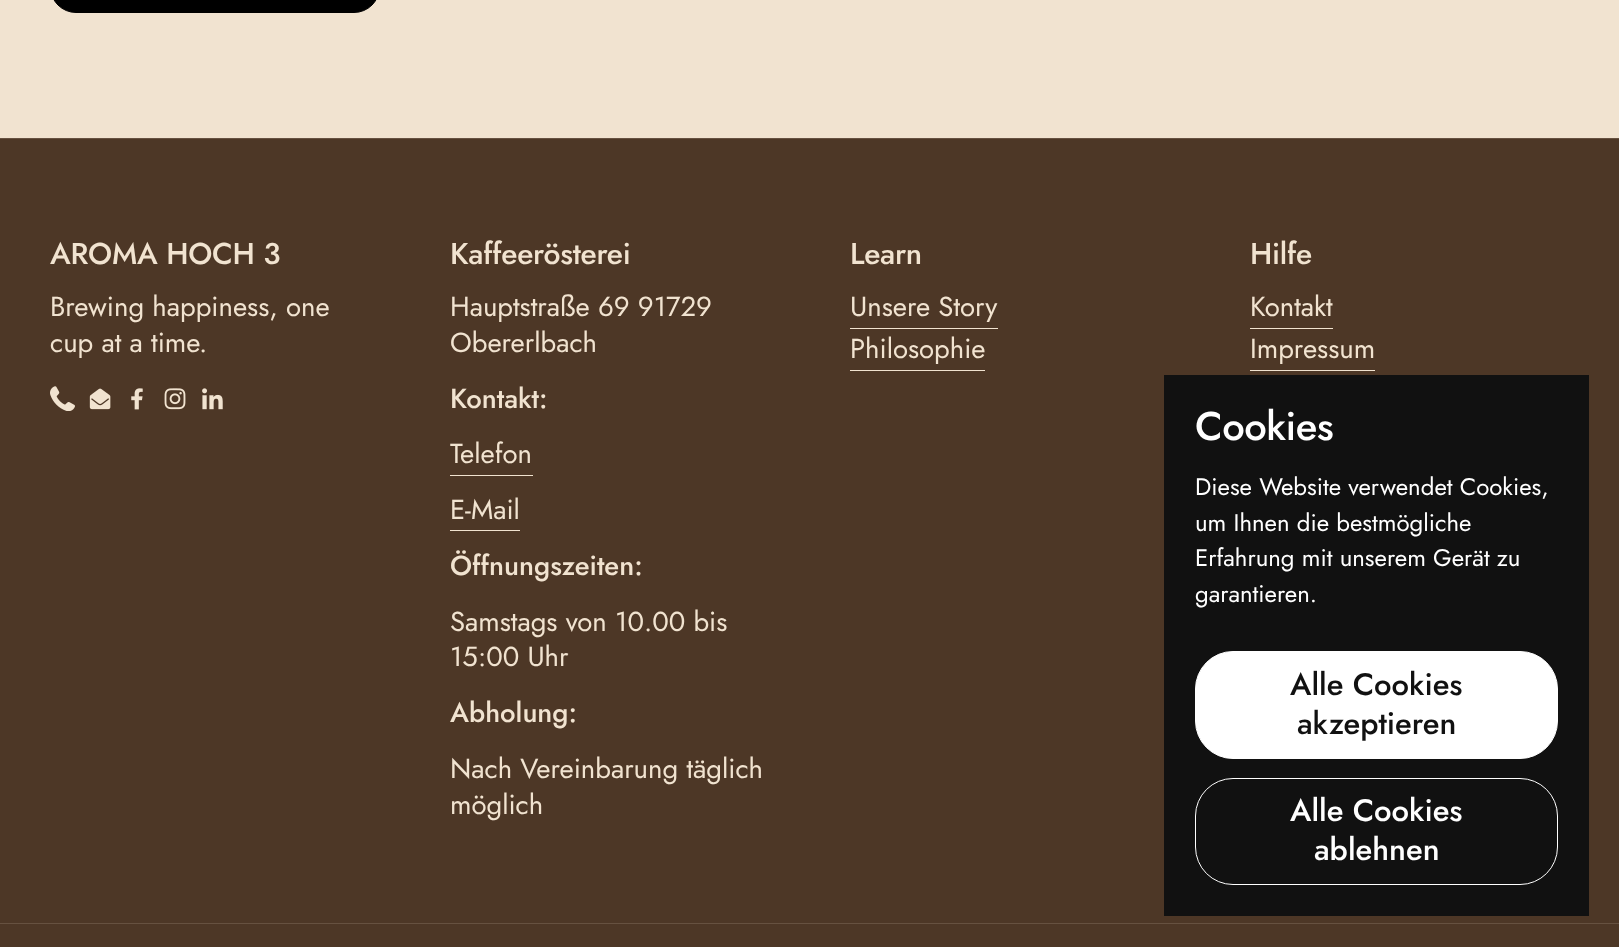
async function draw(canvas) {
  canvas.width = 1619;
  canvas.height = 947;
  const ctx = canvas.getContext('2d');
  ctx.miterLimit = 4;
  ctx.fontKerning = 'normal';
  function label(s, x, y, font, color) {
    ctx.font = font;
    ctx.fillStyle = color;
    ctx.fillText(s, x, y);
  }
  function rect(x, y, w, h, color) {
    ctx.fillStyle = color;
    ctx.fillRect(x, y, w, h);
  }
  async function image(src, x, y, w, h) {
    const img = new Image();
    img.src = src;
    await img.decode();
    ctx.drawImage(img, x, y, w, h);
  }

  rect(0, 0, 1619, 947, '#f1e3d0');
  ctx.fillStyle = '#000';
  ctx.beginPath();
  ctx.roundRect(50.5, -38.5, 329, 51, 37.5);
  ctx.fill();
  ctx.strokeStyle = '#000';
  ctx.stroke();
  rect(0, 139, 1619, 808, '#4d3726');
  rect(0, 138, 1619, 1, '#665140');
  ctx.letterSpacing = '-0.25px';
  label('AROMA HOCH 3', 50, 264, '500 30px Jost', '#f1e3d0');
  ctx.letterSpacing = '0px';
  label('Brewing happiness, one', 50, 316, '27.5px Jost', '#f1e3d0');
  label('cup at a time.', 50, 352, '27.5px Jost', '#f1e3d0');
  await image('assets/img1.png', 50, 386, 25, 25);
  await image('assets/img2.png', 89, 388, 22, 22);
  await image('assets/img3.png', 131, 388, 12, 22);
  await image('assets/img4.png', 164, 388, 22, 22);
  await image('assets/img5.png', 202, 388, 21, 22);
  ctx.letterSpacing = '-0.25px';
  label('Kaffeerösterei', 450, 264, '500 30px Jost', '#f1e3d0');
  ctx.letterSpacing = '0px';
  label('Hauptstraße 69 91729', 450, 316, '27.5px Jost', '#f1e3d0');
  label('Obererlbach', 450, 352, '27.5px Jost', '#f1e3d0');
  label('Kontakt:', 450, 408, '500 27.5px Jost', '#f1e3d0');
  label('Telefon', 450, 463, '27.5px Jost', '#f1e3d0');
  rect(450, 475, 83, 1, '#f1e3d0');
  label('E-Mail', 450, 519, '27.5px Jost', '#f1e3d0');
  rect(450, 530, 70, 1, '#f1e3d0');
  label('Öffnungszeiten:', 450, 575, '500 27.5px Jost', '#f1e3d0');
  label('Samstags von 10.00 bis', 450, 631, '27.5px Jost', '#f1e3d0');
  label('15:00 Uhr', 450, 666, '27.5px Jost', '#f1e3d0');
  label('Abholung:', 450, 722, '500 27.5px Jost', '#f1e3d0');
  label('Nach Vereinbarung täglich', 450, 778, '27.5px Jost', '#f1e3d0');
  label('möglich', 450, 814, '27.5px Jost', '#f1e3d0');
  ctx.letterSpacing = '-0.25px';
  label('Learn', 850, 264, '500 30px Jost', '#f1e3d0');
  ctx.letterSpacing = '0px';
  label('Unsere Story', 850, 316, '27.5px Jost', '#f1e3d0');
  rect(850, 328, 148, 1, '#f1e3d0');
  label('Philosophie', 850, 358, '27.5px Jost', '#f1e3d0');
  rect(850, 370, 135, 1, '#f1e3d0');
  ctx.letterSpacing = '-0.25px';
  label('Hilfe', 1250, 264, '500 30px Jost', '#f1e3d0');
  ctx.letterSpacing = '0px';
  label('Kontakt', 1250, 316, '27.5px Jost', '#f1e3d0');
  rect(1250, 328, 83, 1, '#f1e3d0');
  label('Impressum', 1250, 358, '27.5px Jost', '#f1e3d0');
  rect(1250, 370, 125, 1, '#f1e3d0');
  rect(0, 923, 1619, 1, '#665140');
  rect(1164, 375, 425, 541, '#111');
  ctx.letterSpacing = '-0.5px';
  label('Cookies', 1195, 440, '500 40px Jost', '#fff');
  ctx.letterSpacing = '0px';
  label('Diese Website verwendet Cookies,', 1195, 495, '24px Jost', '#fff');
  label('um Ihnen die bestmögliche', 1195, 531, '24px Jost', '#fff');
  label('Erfahrung mit unserem Gerät zu', 1195, 566, '24px Jost', '#fff');
  label('garantieren.', 1195, 602, '24px Jost', '#fff');
  ctx.beginPath();
  ctx.roundRect(1195.5, 651.5, 362, 107, 37.5);
  ctx.fill();
  ctx.strokeStyle = '#fff';
  ctx.stroke();
  label('Alle Cookies', 1290, 695, '500 31px Jost', '#111');
  label('akzeptieren', 1297, 734, '500 31px Jost', '#111');
  ctx.beginPath();
  ctx.roundRect(1195.5, 778.5, 362, 106, 37.5);
  ctx.stroke();
  label('Alle Cookies', 1290, 821, '500 31px Jost', '#fff');
  label('ablehnen', 1314, 860, '500 31px Jost', '#fff');
}

draw(document.querySelector('canvas'));
